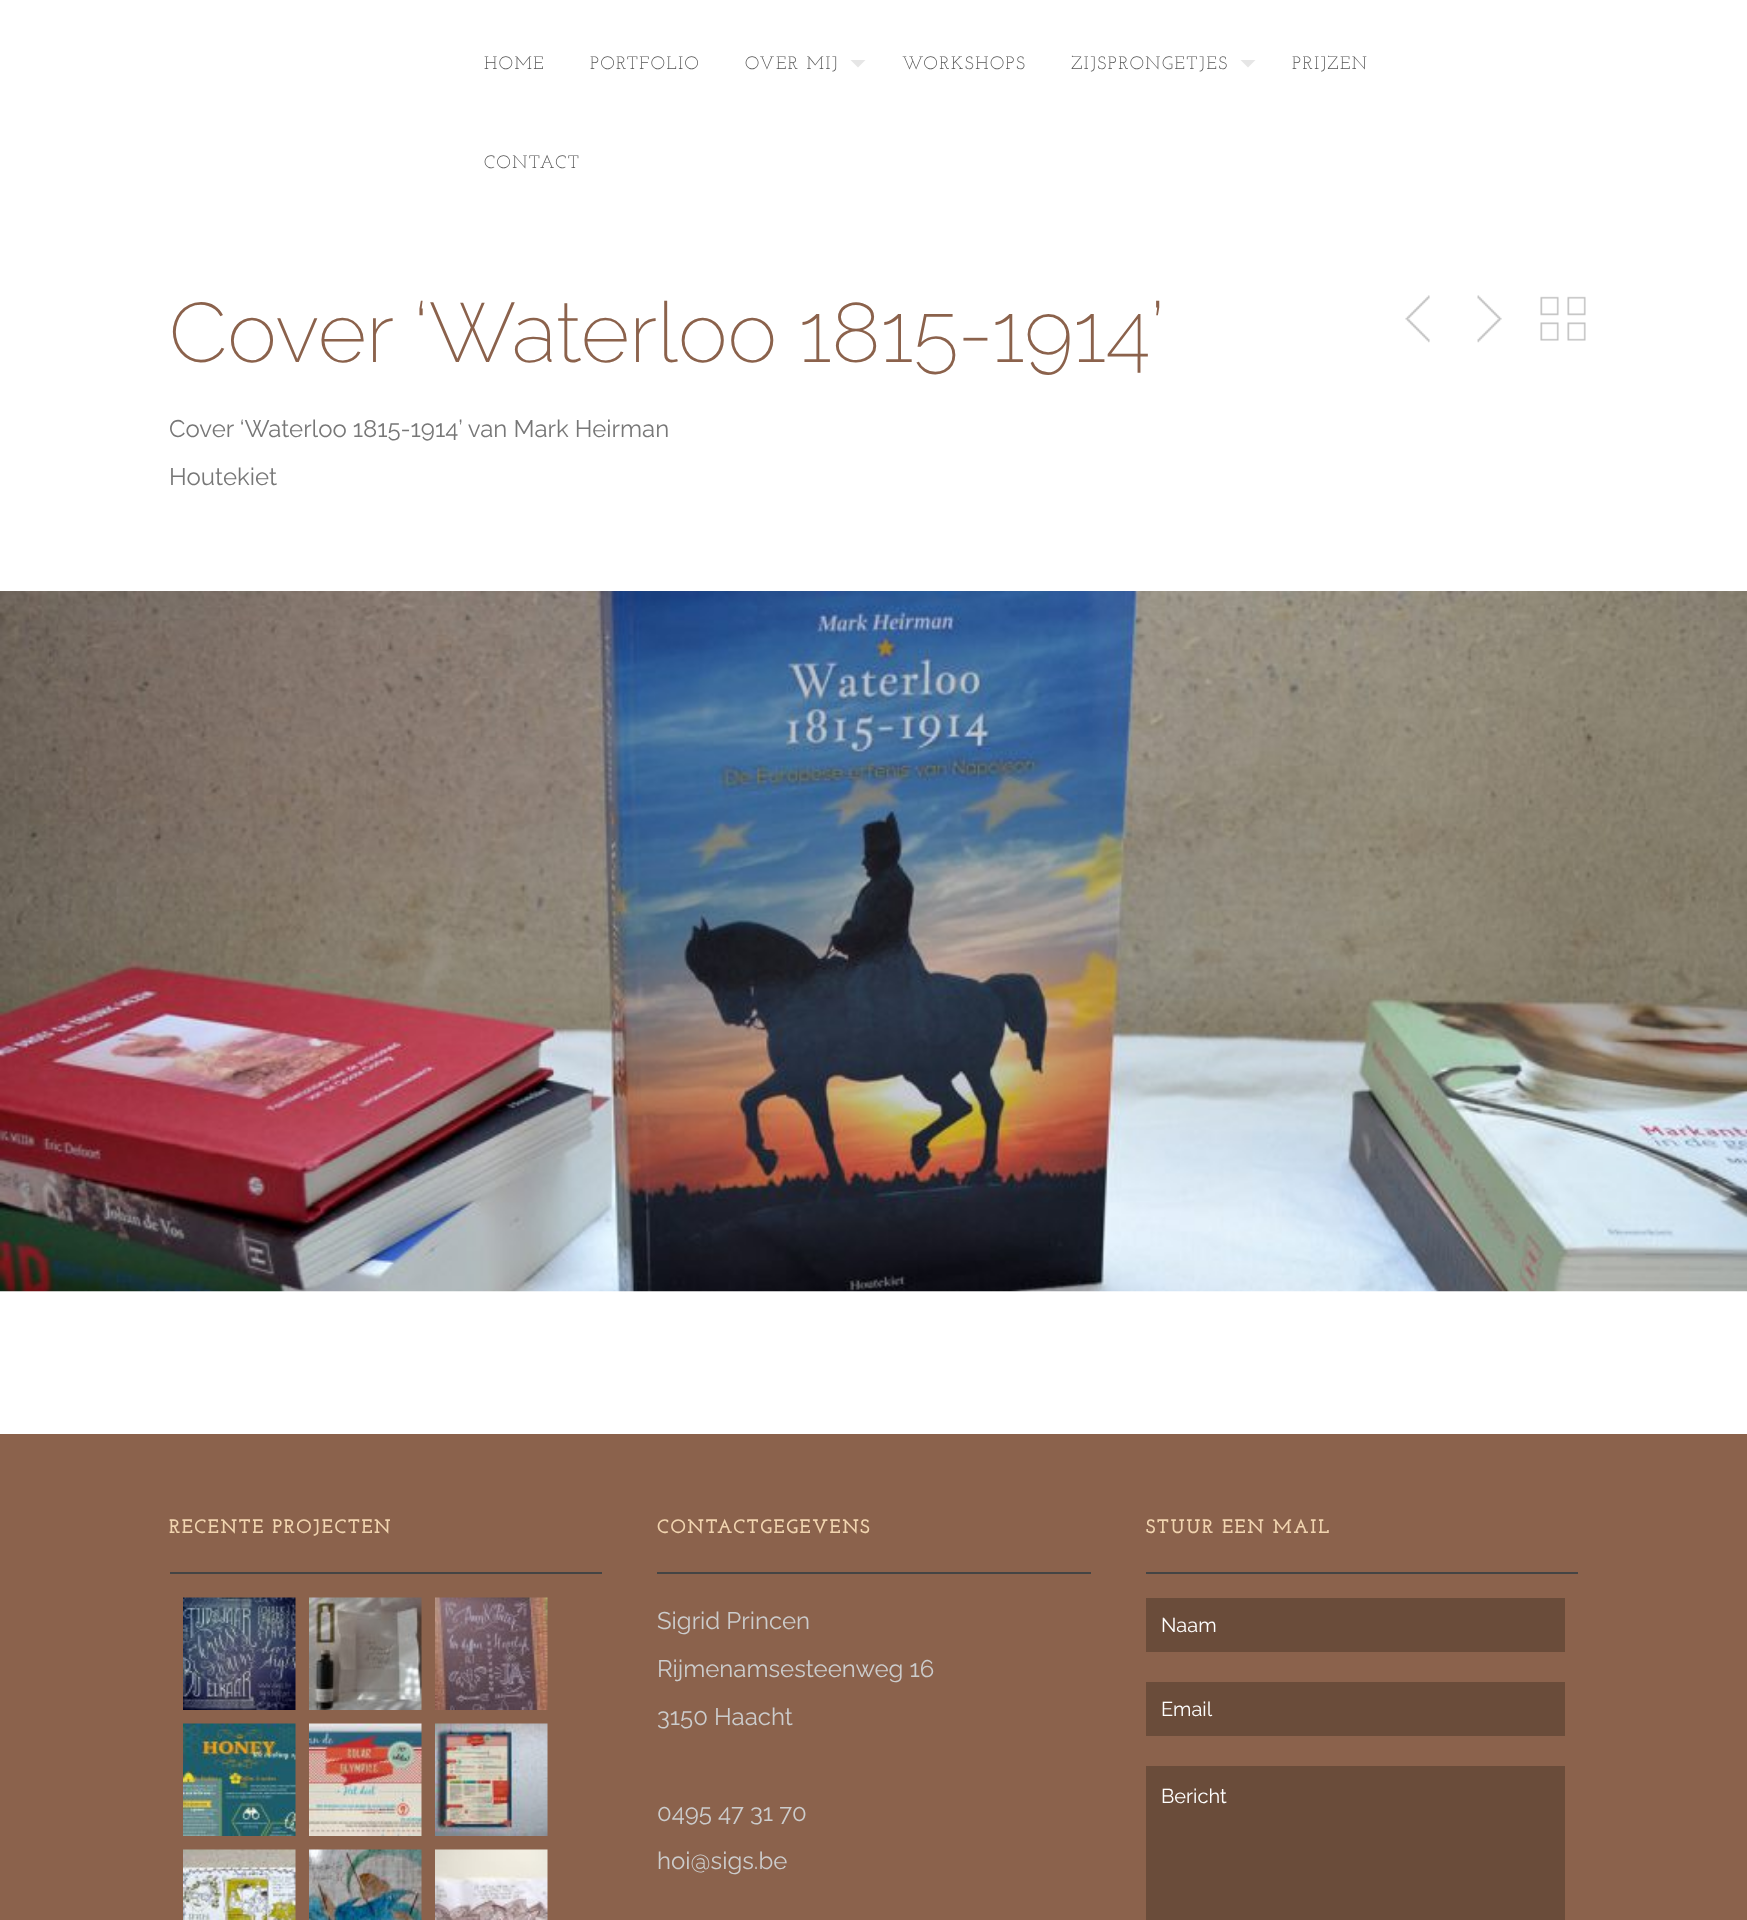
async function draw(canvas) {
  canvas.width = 1747;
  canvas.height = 1920;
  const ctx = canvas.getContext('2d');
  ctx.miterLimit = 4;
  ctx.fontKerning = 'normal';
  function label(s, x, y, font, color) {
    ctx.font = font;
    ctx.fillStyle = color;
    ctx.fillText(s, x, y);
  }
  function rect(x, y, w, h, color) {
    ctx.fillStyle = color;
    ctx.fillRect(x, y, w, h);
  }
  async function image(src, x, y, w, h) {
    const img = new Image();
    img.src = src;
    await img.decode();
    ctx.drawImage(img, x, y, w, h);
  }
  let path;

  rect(0, 0, 1747, 1920, '#fff');
  ctx.letterSpacing = '1.5px';
  label('HOME', 484, 69, '18px Josefin Slab', '#555');
  label('PORTFOLIO', 590, 69, '18px Josefin Slab', '#555');
  label('OVER MIJ', 745, 69, '18px Josefin Slab', '#555');
  ctx.fillStyle = '#e6e6e6';
  path = new Path2D('M850.5 60H865.5L858 67.5Z');
  ctx.fill(path);
  label('WORKSHOPS', 902, 69, '18px Josefin Slab', '#555');
  label('ZIJSPRONGETJES', 1071, 69, '18px Josefin Slab', '#555');
  ctx.fillStyle = '#e6e6e6';
  path = new Path2D('M1240.5 60H1255.5L1248 67.5Z');
  ctx.fill(path);
  label('PRIJZEN', 1292, 69, '18px Josefin Slab', '#555');
  label('CONTACT', 484, 168, '18px Josefin Slab', '#555');
  ctx.letterSpacing = '0px';
  label('Cover ‘Waterloo 1815-1914’', 169, 362, '200 84px Raleway', '#8b624c');
  await image('assets/img1.png', 1405, 295, 25, 48);
  await image('assets/img2.png', 1477, 295, 25, 48);
  await image('assets/img3.png', 1540, 296, 46, 45);
  label('Cover ‘Waterloo 1815-1914’ van Mark Heirman', 169, 437, '24px Raleway', '#777');
  label('Houtekiet', 169, 485, '24px Raleway', '#777');
  await image('assets/img4.png', 0, 591, 1747, 701);
  rect(0, 1434, 1747, 486, '#8b624c');
  rect(170, 1572, 432, 2, '#444');
  ctx.letterSpacing = '1.5px';
  label('RECENTE PROJECTEN', 169, 1533, 'bold 19.5px Josefin Slab', '#f1d4af');
  await image('assets/img5.png', 183, 1597, 113, 113);
  await image('assets/img6.png', 309, 1597, 113, 113);
  await image('assets/img7.png', 435, 1597, 113, 113);
  await image('assets/img8.png', 183, 1723, 113, 113);
  await image('assets/img9.png', 309, 1723, 113, 113);
  await image('assets/img10.png', 435, 1723, 113, 113);
  await image('assets/img11.png', 183, 1849, 113, 71);
  await image('assets/img12.png', 309, 1849, 113, 71);
  await image('assets/img13.png', 435, 1849, 113, 71);
  rect(657, 1572, 434, 2, '#444');
  label('CONTACTGEGEVENS', 657, 1533, 'bold 19.5px Josefin Slab', '#f1d4af');
  ctx.letterSpacing = '0px';
  label('Sigrid Princen', 657, 1629, '24px Raleway', '#ccc');
  label('Rijmenamsesteenweg 16', 657, 1677, '24px Raleway', '#ccc');
  label('3150 Haacht', 657, 1725, '24px Raleway', '#ccc');
  label('0495 47 31 70', 657, 1821, '24px Raleway', '#ccc');
  label('hoi@sigs.be', 657, 1869, '24px Raleway', '#ccc');
  rect(1146, 1572, 432, 2, '#444');
  ctx.letterSpacing = '1.5px';
  label('STUUR EEN MAIL', 1146, 1533, 'bold 19.5px Josefin Slab', '#f1d4af');
  rect(1146, 1598, 419, 54, '#6a4c3a');
  ctx.letterSpacing = '0px';
  label('Naam', 1161, 1632, '20px Raleway', '#fff');
  rect(1146, 1682, 419, 54, '#6a4c3a');
  label('Email', 1161, 1716, '20px Raleway', '#fff');
  rect(1146, 1766, 419, 154, '#6a4c3a');
  label('Bericht', 1161, 1803, '20px Raleway', '#fff');
}

draw(document.querySelector('canvas'));
